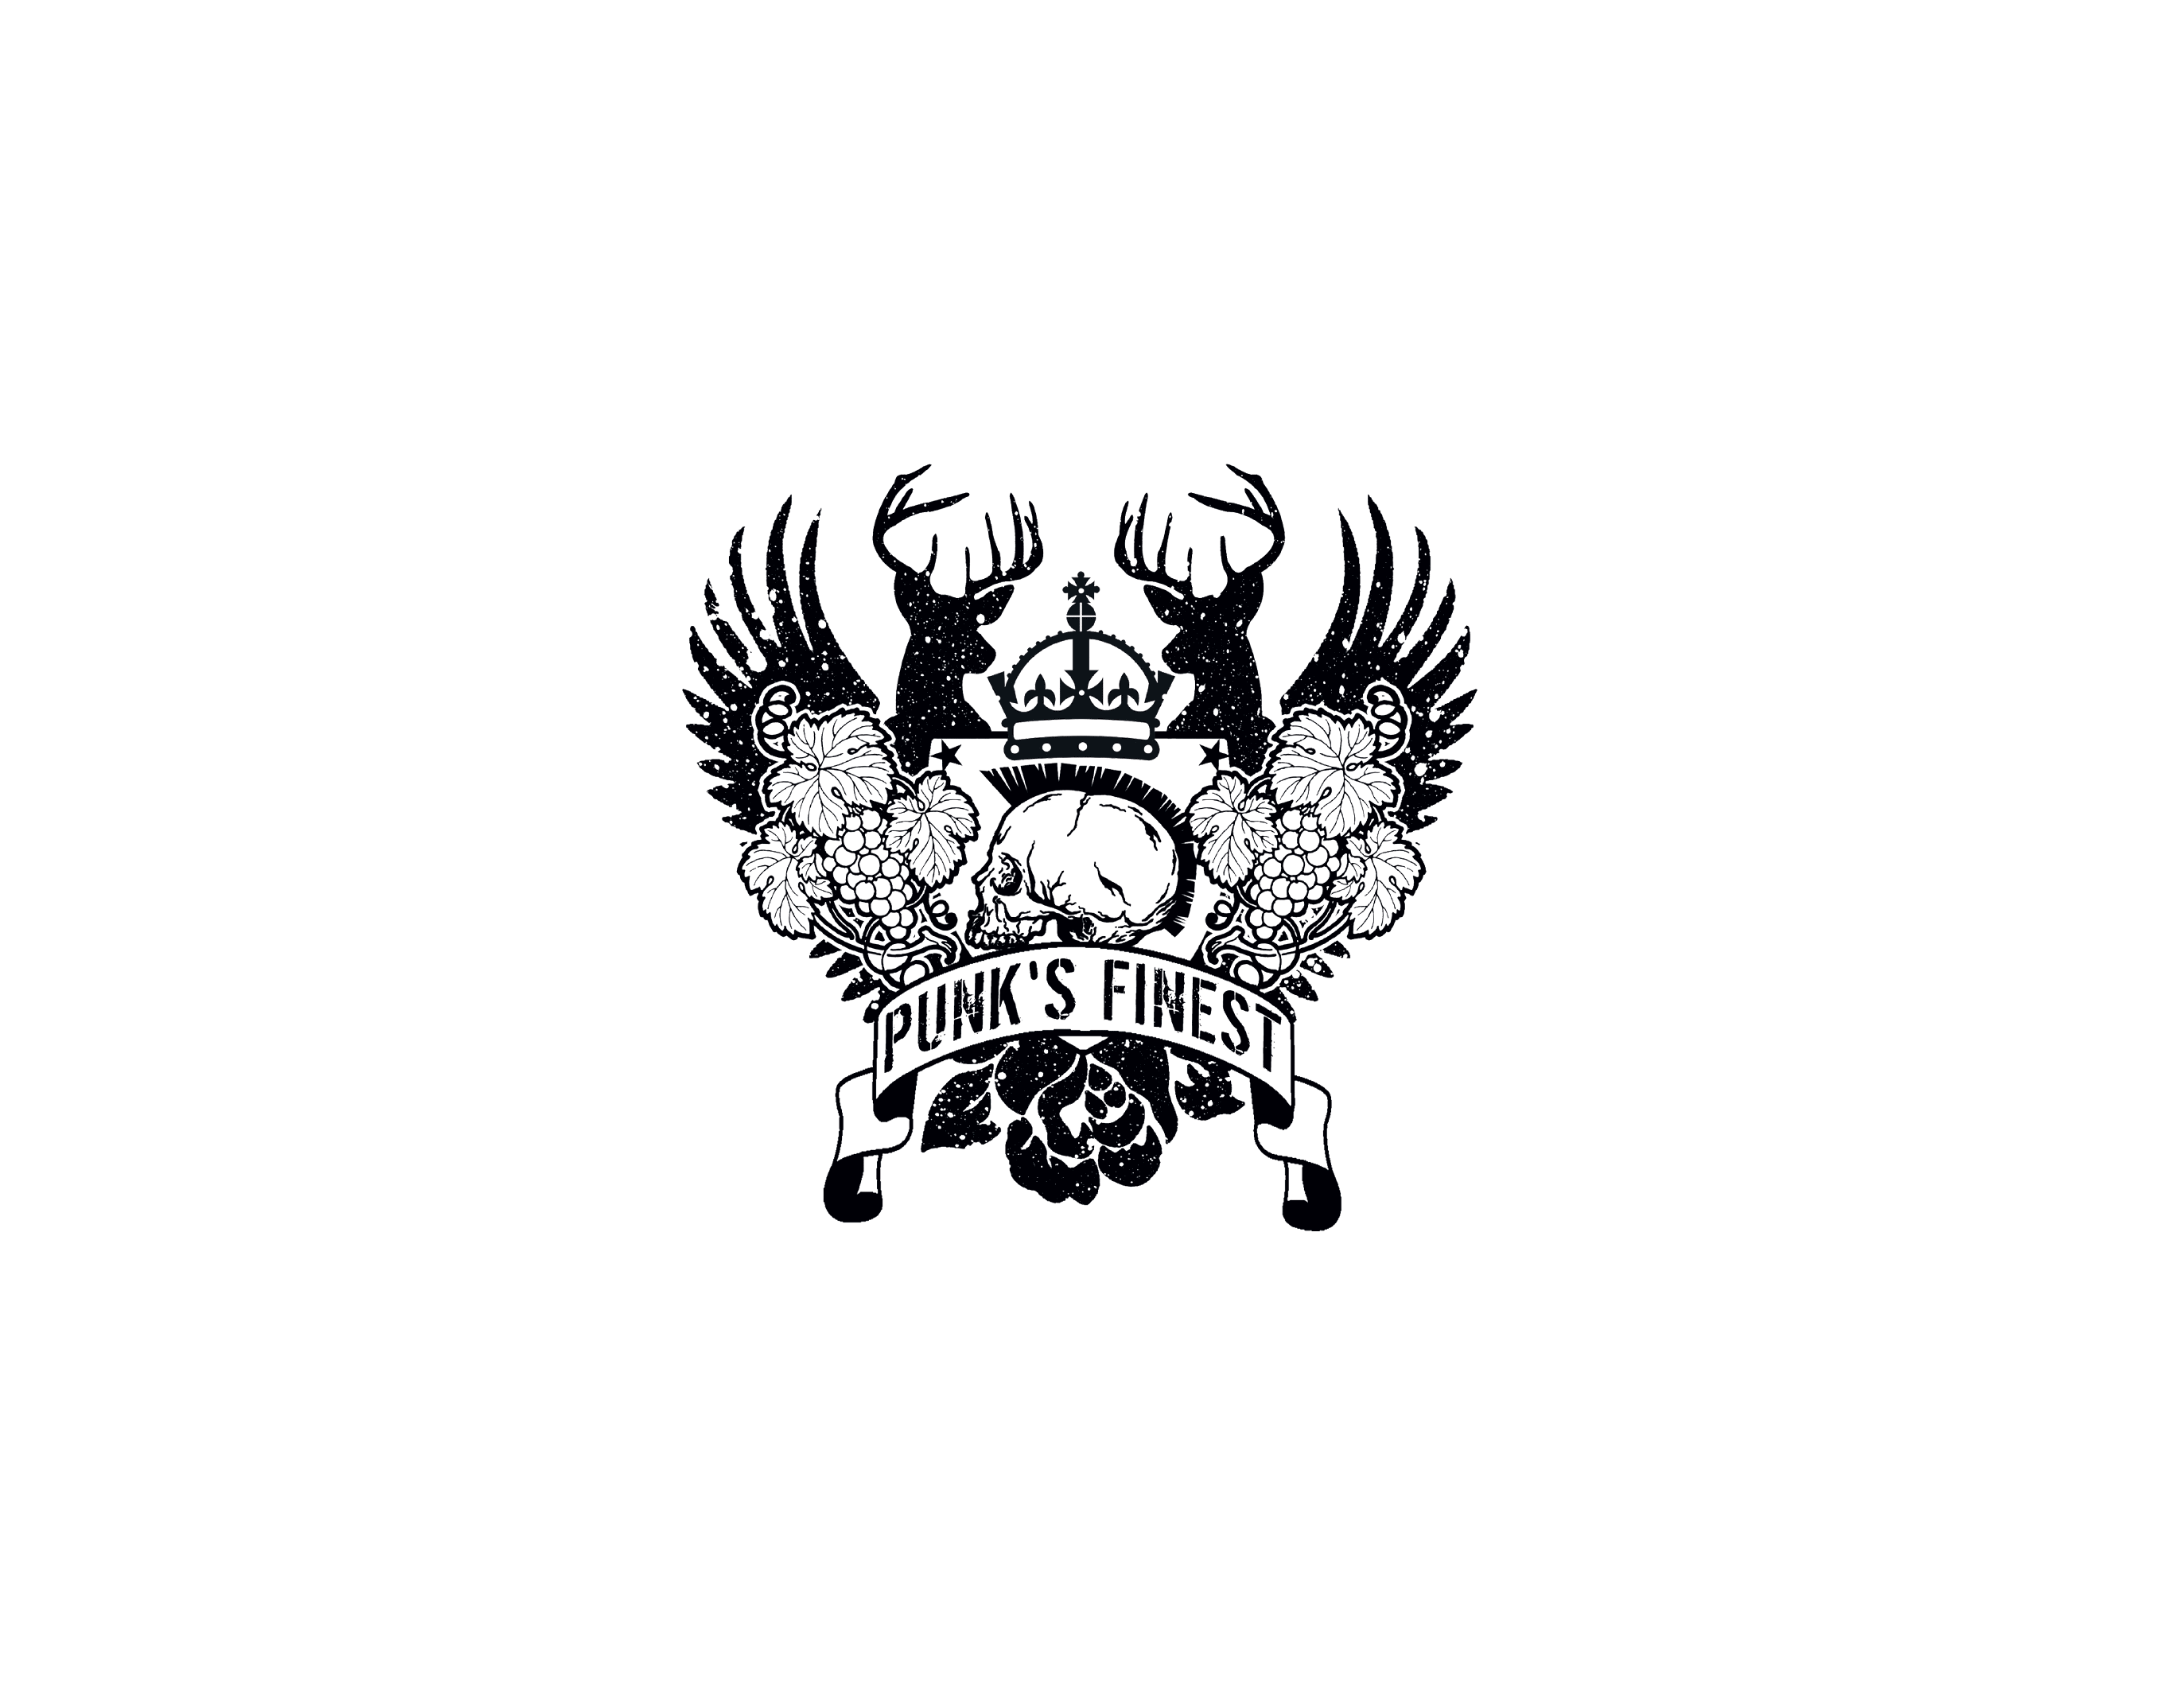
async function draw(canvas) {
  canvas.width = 2158;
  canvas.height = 1698;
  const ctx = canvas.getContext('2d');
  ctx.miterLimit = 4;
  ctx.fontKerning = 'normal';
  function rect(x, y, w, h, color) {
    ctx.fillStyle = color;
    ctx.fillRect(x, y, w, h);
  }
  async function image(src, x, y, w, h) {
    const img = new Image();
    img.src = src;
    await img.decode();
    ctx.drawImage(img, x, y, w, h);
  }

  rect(0, 0, 2158, 1698, '#fff');
  await image('assets/img1.png', 682, 463, 796, 769);
}

draw(document.querySelector('canvas'));
